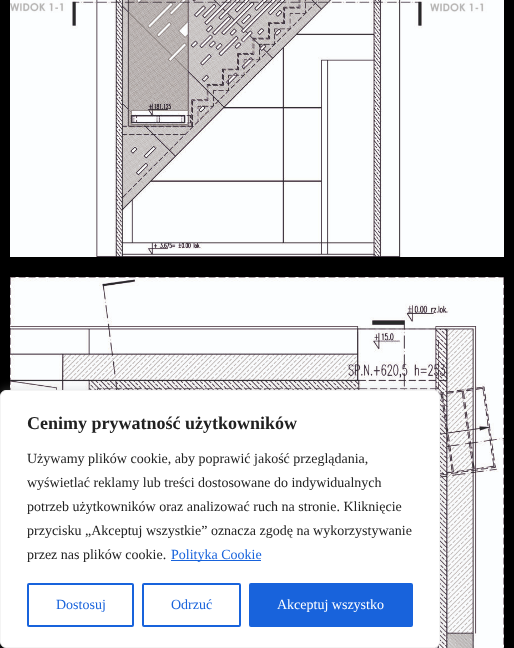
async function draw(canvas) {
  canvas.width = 514;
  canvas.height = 648;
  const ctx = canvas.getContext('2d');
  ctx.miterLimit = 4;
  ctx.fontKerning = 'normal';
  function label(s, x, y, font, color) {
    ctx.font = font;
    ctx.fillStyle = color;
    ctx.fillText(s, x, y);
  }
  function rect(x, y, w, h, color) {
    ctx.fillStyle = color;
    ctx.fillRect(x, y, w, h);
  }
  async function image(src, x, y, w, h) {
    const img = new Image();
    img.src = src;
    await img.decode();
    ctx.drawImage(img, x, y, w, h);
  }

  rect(0, 0, 514, 648, '#000');
  await image('assets/img1.png', 10, 0, 494, 257);
  await image('assets/img2.png', 10, 277, 494, 371);
  ctx.fillStyle = '#acabab4d';
  ctx.filter = 'blur(5px)';
  ctx.beginPath();
  ctx.roundRect(0, 389, 440, 258, 6);
  ctx.fill();
  ctx.filter = 'none';
  ctx.fillStyle = '#fff';
  ctx.beginPath();
  ctx.roundRect(0.5, 390.5, 439, 257, 5.5);
  ctx.fill();
  ctx.strokeStyle = '#f4f4f4';
  ctx.stroke();
  label('Cenimy prywatność użytkowników', 27, 429, 'bold 18px Liberation Serif', '#212121');
  label('Używamy plików cookie, aby poprawić jakość przeglądania,', 27, 463, '14px Liberation Serif', '#212121');
  label('wyświetlać reklamy lub treści dostosowane do indywidualnych', 27, 487, '14px Liberation Serif', '#212121');
  label('potrzeb użytkowników oraz analizować ruch na stronie. Kliknięcie', 27, 511, '14px Liberation Serif', '#212121');
  label('przycisku „Akceptuj wszystkie” oznacza zgodę na wykorzystywanie', 27, 535, '14px Liberation Serif', '#212121');
  label('przez nas plików cookie.', 27, 559, '14px Liberation Serif', '#212121');
  rect(171, 560, 90, 1, '#1863dc');
  label('Polityka Cookie', 171, 559, '14px Liberation Serif', '#1863dc');
  ctx.beginPath();
  ctx.roundRect(28, 584, 105, 42, 1);
  ctx.strokeStyle = '#1863dc';
  ctx.lineWidth = 2;
  ctx.stroke();
  label('Dostosuj', 56, 609, '14px Liberation Serif', '#1863dc');
  ctx.beginPath();
  ctx.roundRect(143, 584, 97, 42, 1);
  ctx.stroke();
  label('Odrzuć', 171, 609, '14px Liberation Serif', '#1863dc');
  ctx.beginPath();
  ctx.roundRect(250, 584, 162, 42, 1);
  ctx.fill();
  ctx.stroke();
  label('Akceptuj wszystko', 277, 609, '14px Liberation Serif', '#fff');
}

draw(document.querySelector('canvas'));
